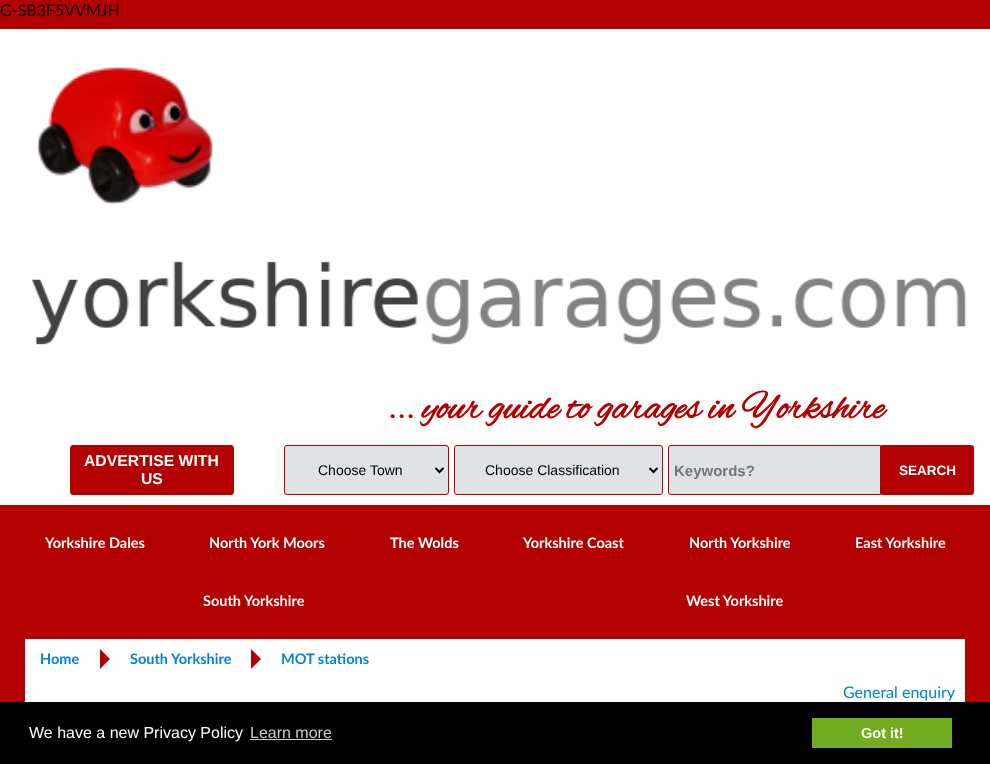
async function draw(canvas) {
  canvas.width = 990;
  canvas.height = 764;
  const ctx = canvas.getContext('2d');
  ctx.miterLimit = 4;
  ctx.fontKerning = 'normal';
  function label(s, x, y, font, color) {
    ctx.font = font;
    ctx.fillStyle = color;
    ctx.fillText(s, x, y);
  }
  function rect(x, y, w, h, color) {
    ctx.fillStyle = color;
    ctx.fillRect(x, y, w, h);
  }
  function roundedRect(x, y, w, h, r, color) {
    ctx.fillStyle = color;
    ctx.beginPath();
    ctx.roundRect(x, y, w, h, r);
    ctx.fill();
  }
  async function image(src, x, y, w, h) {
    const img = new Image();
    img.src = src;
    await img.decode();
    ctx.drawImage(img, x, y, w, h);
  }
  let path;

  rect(0, 0, 990, 764, '#b30000');
  label('G-SB3F5VVMJH', 0, 16, '16px Lato', '#000');
  rect(0, 29, 990, 476, '#fff');
  await image('assets/img1.png', 37, 67, 176, 138);
  await image('assets/img2.png', 31, 261, 936, 84);
  label('... your guide to garages in Yorkshire', 387, 418, 'bold 40px Alex Brush', '#b30000');
  ctx.beginPath();
  ctx.roundRect(70.5, 445.5, 163, 49, 2.5);
  ctx.fill();
  ctx.strokeStyle = '#b30000';
  ctx.stroke();
  label('ADVERTISE WITH', 84, 466, 'bold 15.75px Liberation Sans', '#fff');
  label('US', 141, 484, 'bold 15.75px Liberation Sans', '#fff');
  ctx.fillStyle = '#dfe3e6';
  ctx.beginPath();
  ctx.roundRect(284.5, 445.5, 164, 49, 2.5);
  ctx.fill();
  ctx.stroke();
  path = new Path2D('M435.5 468L439.5 472L443.5 468');
  ctx.strokeStyle = '#000';
  ctx.lineWidth = 2;
  ctx.stroke(path);
  label('Choose Town', 318, 475, '14px Liberation Sans', '#000');
  ctx.fillStyle = '#dfe3e6';
  ctx.beginPath();
  ctx.roundRect(454.5, 445.5, 208, 49, 2.5);
  ctx.fill();
  ctx.strokeStyle = '#b30000';
  ctx.lineWidth = 1;
  ctx.stroke();
  path = new Path2D('M649.5 468L653.5 472L657.5 468');
  ctx.strokeStyle = '#000';
  ctx.lineWidth = 2;
  ctx.stroke(path);
  label('Choose Classification', 485, 475, '14px Liberation Sans', '#000');
  ctx.fillStyle = '#dfe3e6';
  ctx.beginPath();
  ctx.roundRect(668.5, 445.5, 212, 49, [2.5, 0, 0, 2.5]);
  ctx.fill();
  ctx.strokeStyle = '#b30000';
  ctx.lineWidth = 1;
  ctx.stroke();
  label('Keywords?', 674, 476, 'bold 15px Liberation Sans', '#757575');
  roundedRect(880, 445, 94, 50, 3, '#b30000');
  label('SEARCH', 899, 475, 'bold 13.5px Liberation Sans', '#fff');
  label('Yorkshire Dales', 45, 548, 'bold 14.5px Lato', '#fff');
  label('North York Moors', 209, 548, 'bold 14.5px Lato', '#fff');
  label('The Wolds', 390, 548, 'bold 14.5px Lato', '#fff');
  label('Yorkshire Coast', 523, 548, 'bold 14.5px Lato', '#fff');
  label('North Yorkshire', 689, 548, 'bold 14.5px Lato', '#fff');
  label('East Yorkshire', 855, 548, 'bold 14.5px Lato', '#fff');
  label('South Yorkshire', 203, 606, 'bold 14.5px Lato', '#fff');
  label('West Yorkshire', 686, 606, 'bold 14.5px Lato', '#fff');
  rect(25, 639, 940, 63, '#fff');
  label('Home', 40, 664, 'bold 14.5px Lato', '#0083d7');
  ctx.fillStyle = '#b30000';
  path = new Path2D('M100 669V649L110 659Z');
  ctx.fill(path);
  label('South Yorkshire', 130, 664, 'bold 14.5px Lato', '#0083d7');
  ctx.fillStyle = '#b30000';
  path = new Path2D('M251 669V649L261 659Z');
  ctx.fill(path);
  label('MOT stations', 281, 664, 'bold 14.5px Lato', '#0083d7');
  label('General enquiry', 843, 698, '16px Lato', '#0083d7');
  rect(0, 702, 990, 62, '#000');
  label('We have a new Privacy Policy', 29, 738, '16px Liberation Sans', '#fff');
  label('Learn more', 250, 738, '16px Liberation Sans', '#ccc');
  rect(250, 739, 82, 1, '#ccc');
  rect(812, 718, 140, 30, '#71ac23');
  label('Got it!', 861, 738, 'bold 14.5px Liberation Sans', '#fff');
}

draw(document.querySelector('canvas'));
